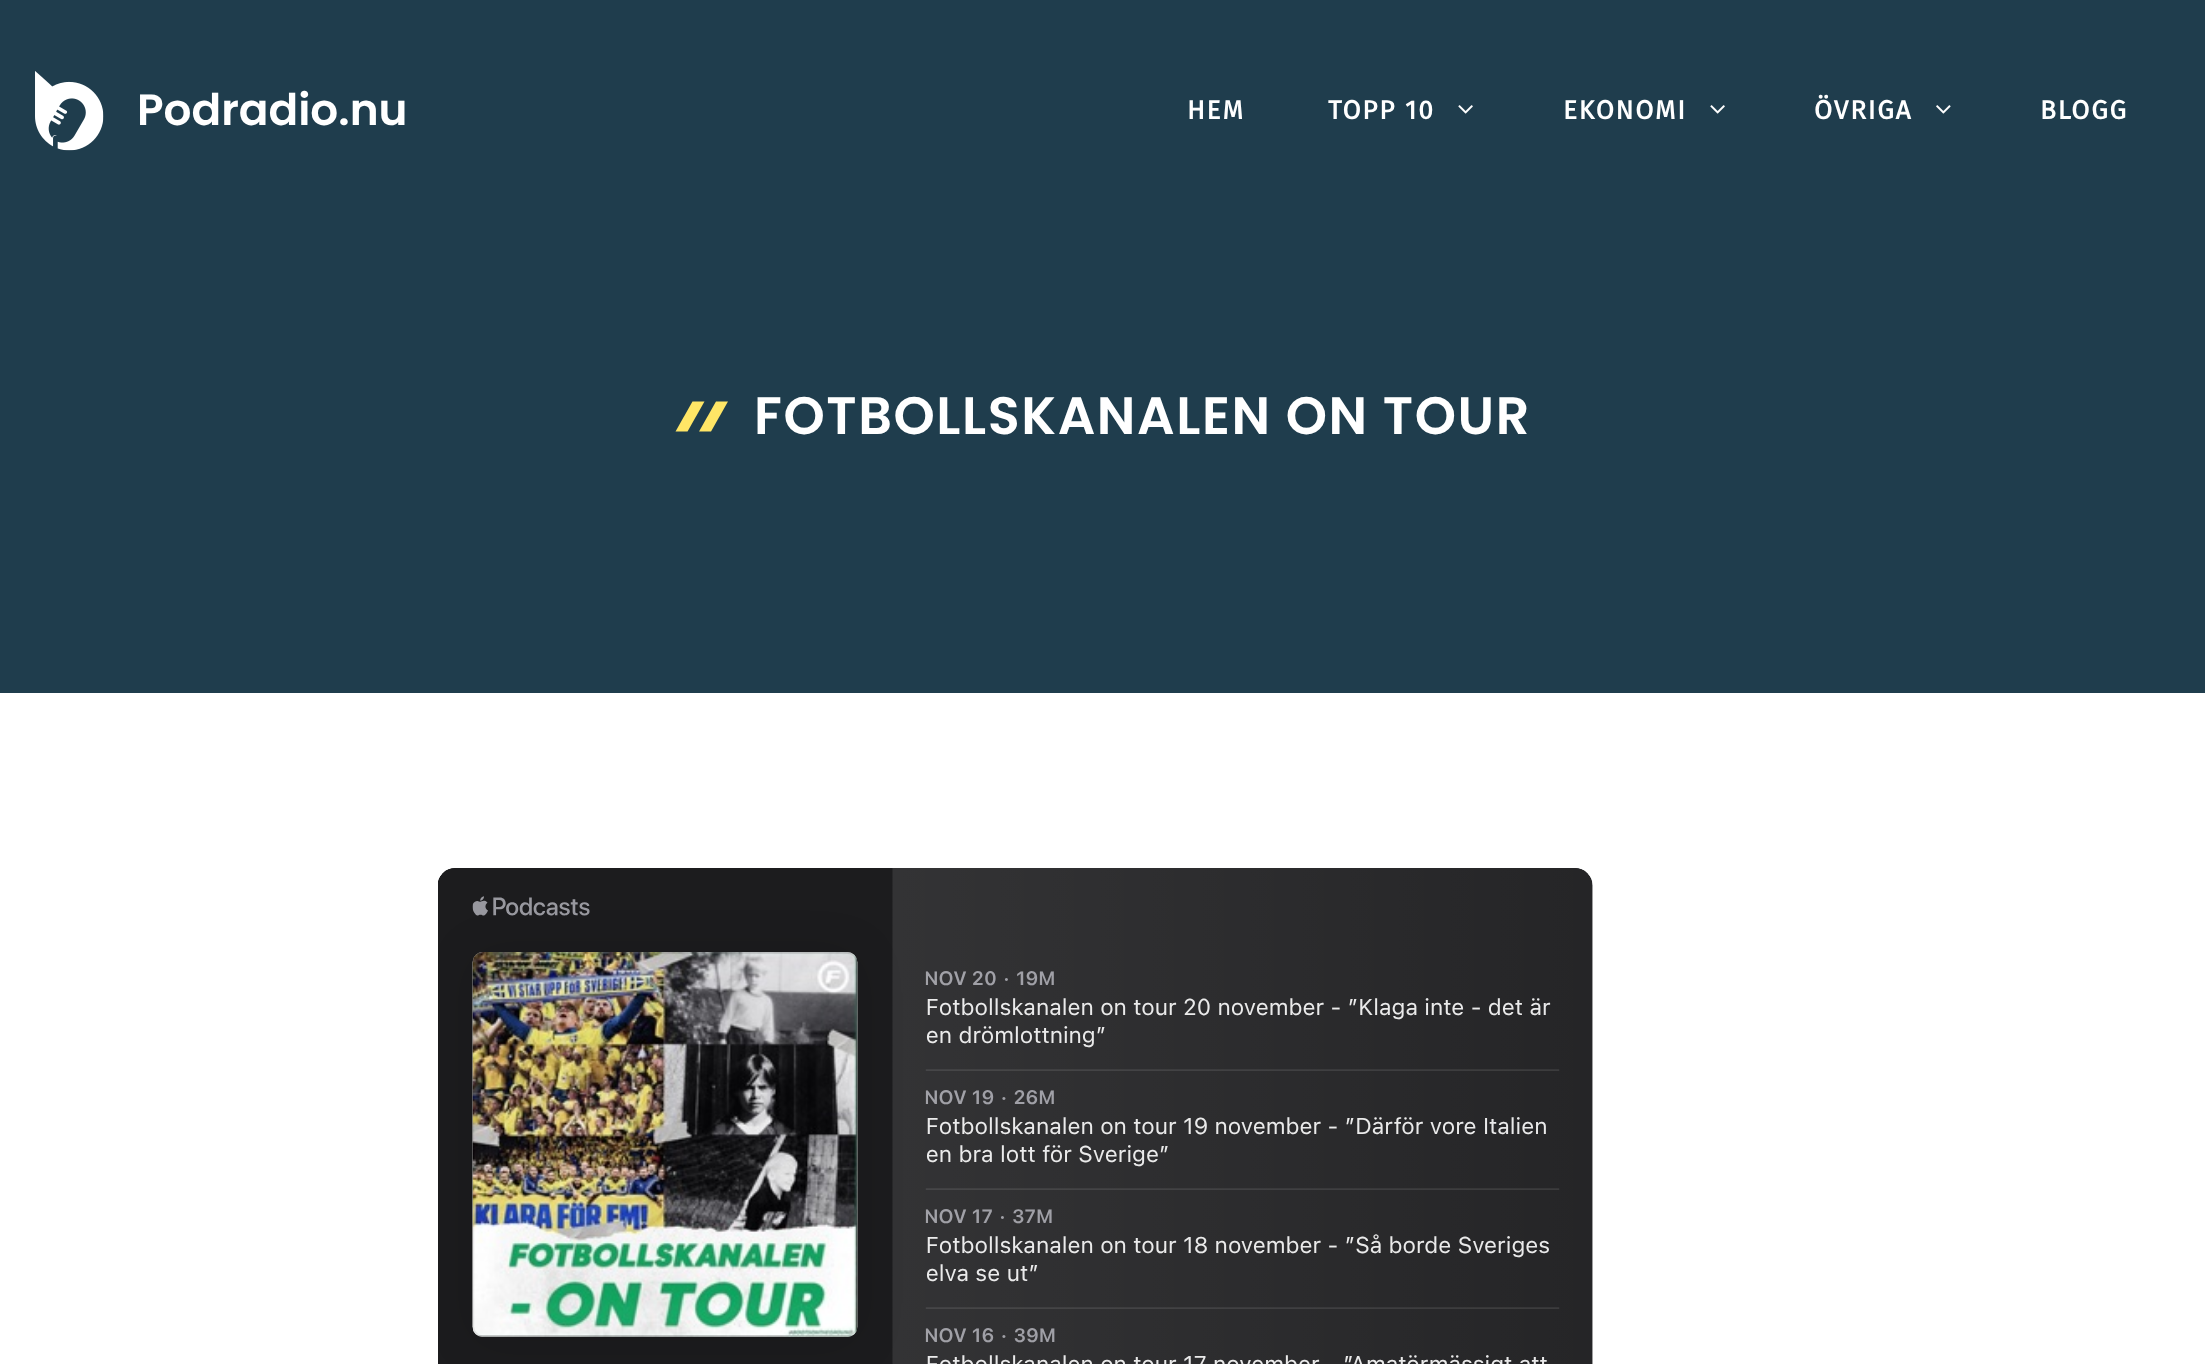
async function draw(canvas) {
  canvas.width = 2205;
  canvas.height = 1364;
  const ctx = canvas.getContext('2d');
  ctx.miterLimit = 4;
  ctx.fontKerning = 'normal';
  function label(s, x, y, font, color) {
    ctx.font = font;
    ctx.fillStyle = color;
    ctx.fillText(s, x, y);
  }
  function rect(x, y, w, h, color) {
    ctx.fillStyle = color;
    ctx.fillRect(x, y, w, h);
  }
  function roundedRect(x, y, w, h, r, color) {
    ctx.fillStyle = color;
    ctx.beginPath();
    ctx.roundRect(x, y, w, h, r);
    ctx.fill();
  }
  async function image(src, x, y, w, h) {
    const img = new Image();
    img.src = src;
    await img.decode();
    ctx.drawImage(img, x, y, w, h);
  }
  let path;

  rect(0, 0, 2205, 1364, '#fff');
  rect(0, 0, 2205, 693, '#1f3d4d');
  await image('assets/img1.png', 35, 71, 69, 80);
  label('Podradio.nu', 137, 125, '600 43.75px Poppins', '#fff');
  ctx.letterSpacing = '1.75px';
  label('HEM', 1187, 119, 'bold 26.25px Fira Sans', '#fff');
  label('TOPP 10', 1328, 119, 'bold 26.25px Fira Sans', '#fff');
  await image('assets/img2.png', 1458, 105, 15, 9);
  label('EKONOMI', 1563, 119, 'bold 26.25px Fira Sans', '#fff');
  await image('assets/img2.png', 1710, 105, 15, 9);
  label('ÖVRIGA', 1814, 119, 'bold 26.25px Fira Sans', '#fff');
  await image('assets/img3.png', 1936, 105, 15, 9);
  label('BLOGG', 2040, 119, 'bold 26.25px Fira Sans', '#fff');
  ctx.fillStyle = '#ffe666';
  path = new Path2D('M687.5 431.5H675.5L692.5 401.5H704.5Z');
  ctx.fill(path);
  path = new Path2D('M711 431.5H699L716 401.5H728Z');
  ctx.fill(path);
  ctx.letterSpacing = '1.6px';
  label('FOTBOLLSKANALEN ON TOUR', 754, 434, '600 52.5px Poppins', '#fff');
  roundedRect(438, 868, 1155, 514, 18, '#e4e4e4');
  await image('assets/img4.png', 438, 868, 1155, 496);
}

draw(document.querySelector('canvas'));
